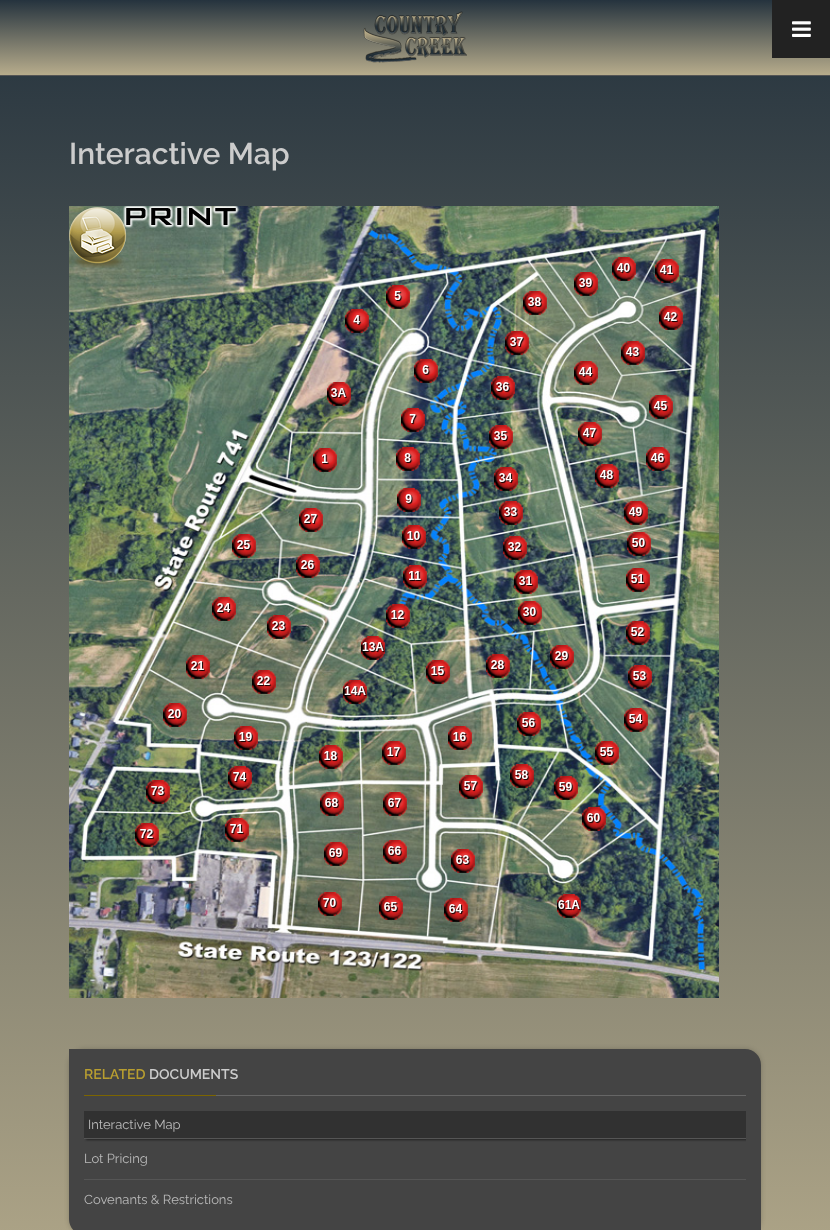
async function draw(canvas) {
  canvas.width = 830;
  canvas.height = 1230;
  const ctx = canvas.getContext('2d');
  ctx.miterLimit = 4;
  ctx.fontKerning = 'normal';
  function label(s, x, y, font, color) {
    ctx.font = font;
    ctx.fillStyle = color;
    ctx.fillText(s, x, y);
  }
  function rect(x, y, w, h, color) {
    ctx.fillStyle = color;
    ctx.fillRect(x, y, w, h);
  }
  async function image(src, x, y, w, h) {
    const img = new Image();
    img.src = src;
    await img.decode();
    ctx.drawImage(img, x, y, w, h);
  }
  let gradient, path;

  rect(0, 0, 830, 1230, '#fff');
  gradient = ctx.createLinearGradient(415, 0, 415, 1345);
  gradient.addColorStop(0, '#25333e');
  gradient.addColorStop(1, '#b7ac8c');
  ctx.fillStyle = gradient;
  ctx.fillRect(0, 76, 830, 1154);
  gradient = ctx.createLinearGradient(415, 0, 415, 75);
  gradient.addColorStop(0, '#25333e');
  gradient.addColorStop(1, '#b7ac8c');
  ctx.fillStyle = gradient;
  ctx.fillRect(0, 0, 830, 75);
  rect(0, 75, 830, 1, '#555');
  await image('assets/img1.png', 363, 11, 104, 52);
  rect(772, 0, 58, 58, '#222');
  await image('assets/img2.png', 792, 21, 19, 16);
  label('Interactive Map', 69, 164, '600 30px Raleway', '#ccc');
  await image('assets/img3.png', 69, 206, 650, 792);
  ctx.fillStyle = '#00000033';
  ctx.filter = 'blur(2.5px)';
  ctx.beginPath();
  ctx.roundRect(69, 1049, 692, 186, 16);
  ctx.fill();
  ctx.filter = 'none';
  ctx.fillStyle = '#444';
  path = new Path2D('M69 1049H745C754 1049 761 1056 761 1065V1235H85C76 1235 69 1228 69 1219Z');
  ctx.fill(path);
  rect(216, 1095, 530, 1, '#666');
  label('RELATED', 84, 1079, '600 14px Raleway', '#b89e30');
  label('DOCUMENTS', 149, 1079, '600 14px Raleway', '#ccc');
  rect(84, 1095, 132, 1, '#7c6500');
  ctx.save();
  ctx.beginPath();
  ctx.rect(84, 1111, 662, 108);
  ctx.clip();
  ctx.fillStyle = '#00000080';
  ctx.filter = 'blur(1px)';
  ctx.beginPath();
  ctx.rect(86, 1113, 662, 27);
  ctx.fill();
  ctx.filter = 'none';
  ctx.restore();
  rect(84, 1111, 662, 27, '#313131');
  label('Interactive Map', 88, 1129, '13px Raleway', '#bbb');
  rect(84, 1138, 662, 1, '#555');
  label('Lot Pricing', 84, 1163, '13px Raleway', '#bbb');
  rect(84, 1179, 662, 1, '#555');
  label('Covenants & Restrictions', 84, 1204, '13px Raleway', '#bbb');
}

draw(document.querySelector('canvas'));
